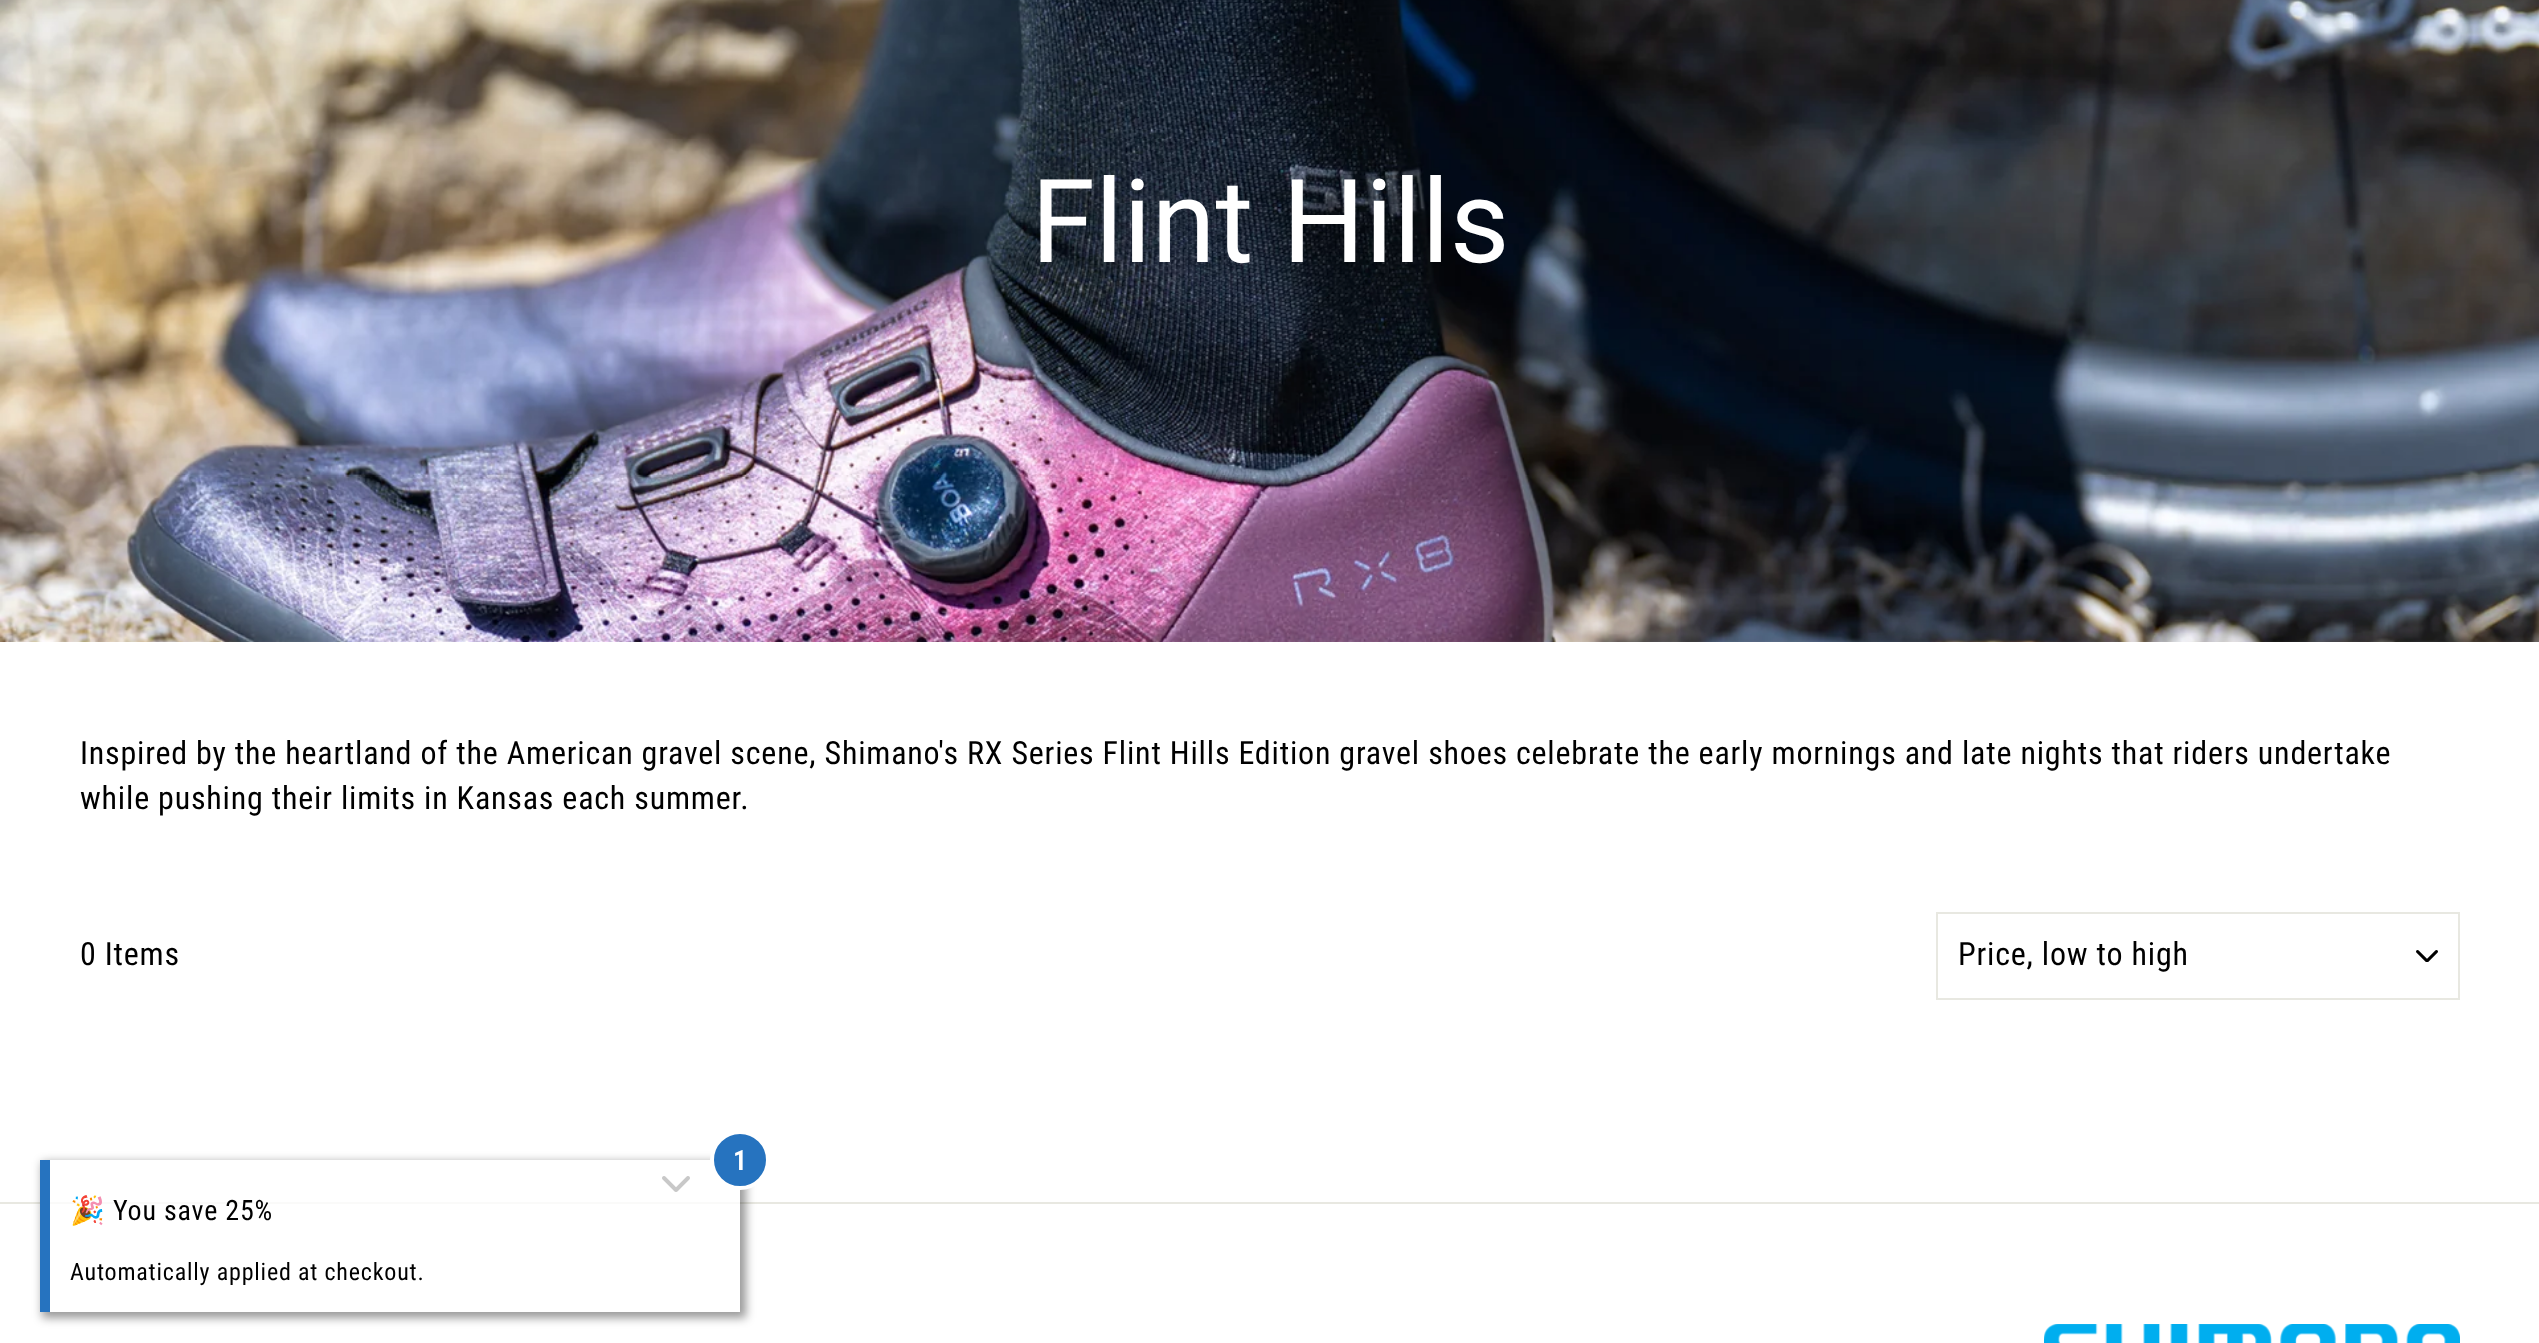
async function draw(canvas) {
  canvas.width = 2539;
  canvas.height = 1343;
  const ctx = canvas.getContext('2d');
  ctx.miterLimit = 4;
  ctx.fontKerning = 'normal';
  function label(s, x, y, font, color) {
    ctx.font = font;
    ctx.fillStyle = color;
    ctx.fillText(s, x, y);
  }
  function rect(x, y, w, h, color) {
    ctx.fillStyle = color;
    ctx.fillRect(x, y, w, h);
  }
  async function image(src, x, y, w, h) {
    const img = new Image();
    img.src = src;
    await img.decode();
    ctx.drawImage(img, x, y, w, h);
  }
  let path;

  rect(0, 0, 2539, 1343, '#fff');
  await image('assets/img1.png', 0, 0, 2539, 642);
  label('Flint Hills', 1031, 262, '116px Roboto', '#fff');
  ctx.letterSpacing = '0.8px';
  label('Inspired by the heartland of the American gravel scene, Shimano\'s RX Series Flint Hills Edition gravel shoes celebrate the early mornings and late nights that riders undertake', 80, 764, '32px Roboto Condensed', '#000');
  label('while pushing their limits in Kansas each summer.', 80, 809, '32px Roboto Condensed', '#000');
  label('0 Items', 80, 965, '32px Roboto Condensed', '#000');
  await image('assets/img2.png', 2416, 950, 22, 12);
  ctx.strokeStyle = '#e8e8e1';
  ctx.lineWidth = 2;
  ctx.strokeRect(1937, 913, 522, 86);
  label('Price, low to high', 1958, 965, '32px Roboto Condensed', '#000');
  rect(0, 1202, 2539, 2, '#e8e8e1');
  rect(50, 1202, 690, 2, '#fafaf9');
  await image('assets/img3.png', 2044, 1324, 416, 19);
  ctx.save();
  path = new Path2D('M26 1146H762V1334H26ZM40 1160H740V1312H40Z');
  ctx.clip(path, 'evenodd');
  ctx.fillStyle = '#00000066';
  ctx.filter = 'blur(5px)';
  ctx.beginPath();
  ctx.rect(42, 1162, 704, 156);
  ctx.fill();
  ctx.filter = 'none';
  ctx.restore();
  ctx.fillStyle = '#2673bf';
  ctx.beginPath();
  ctx.arc(740, 1160, 28, 0, 2 * Math.PI);
  ctx.fill();
  ctx.strokeStyle = '#fff';
  ctx.lineWidth = 4;
  ctx.stroke();
  label('1', 733, 1170, '600 28px Roboto Condensed', '#fff');
  rect(40, 1160, 10, 152, '#2673bf');
  await image('assets/img4.png', 662, 1176, 28, 16);
  label('🎉', 70, 1220, '28px Noto Color Emoji', '#000');
  label('You save 25%', 113, 1220, '28px Roboto Condensed', '#000');
  label('Automatically applied at checkout.', 70, 1280, '24px Roboto Condensed', '#000');
}

draw(document.querySelector('canvas'));
